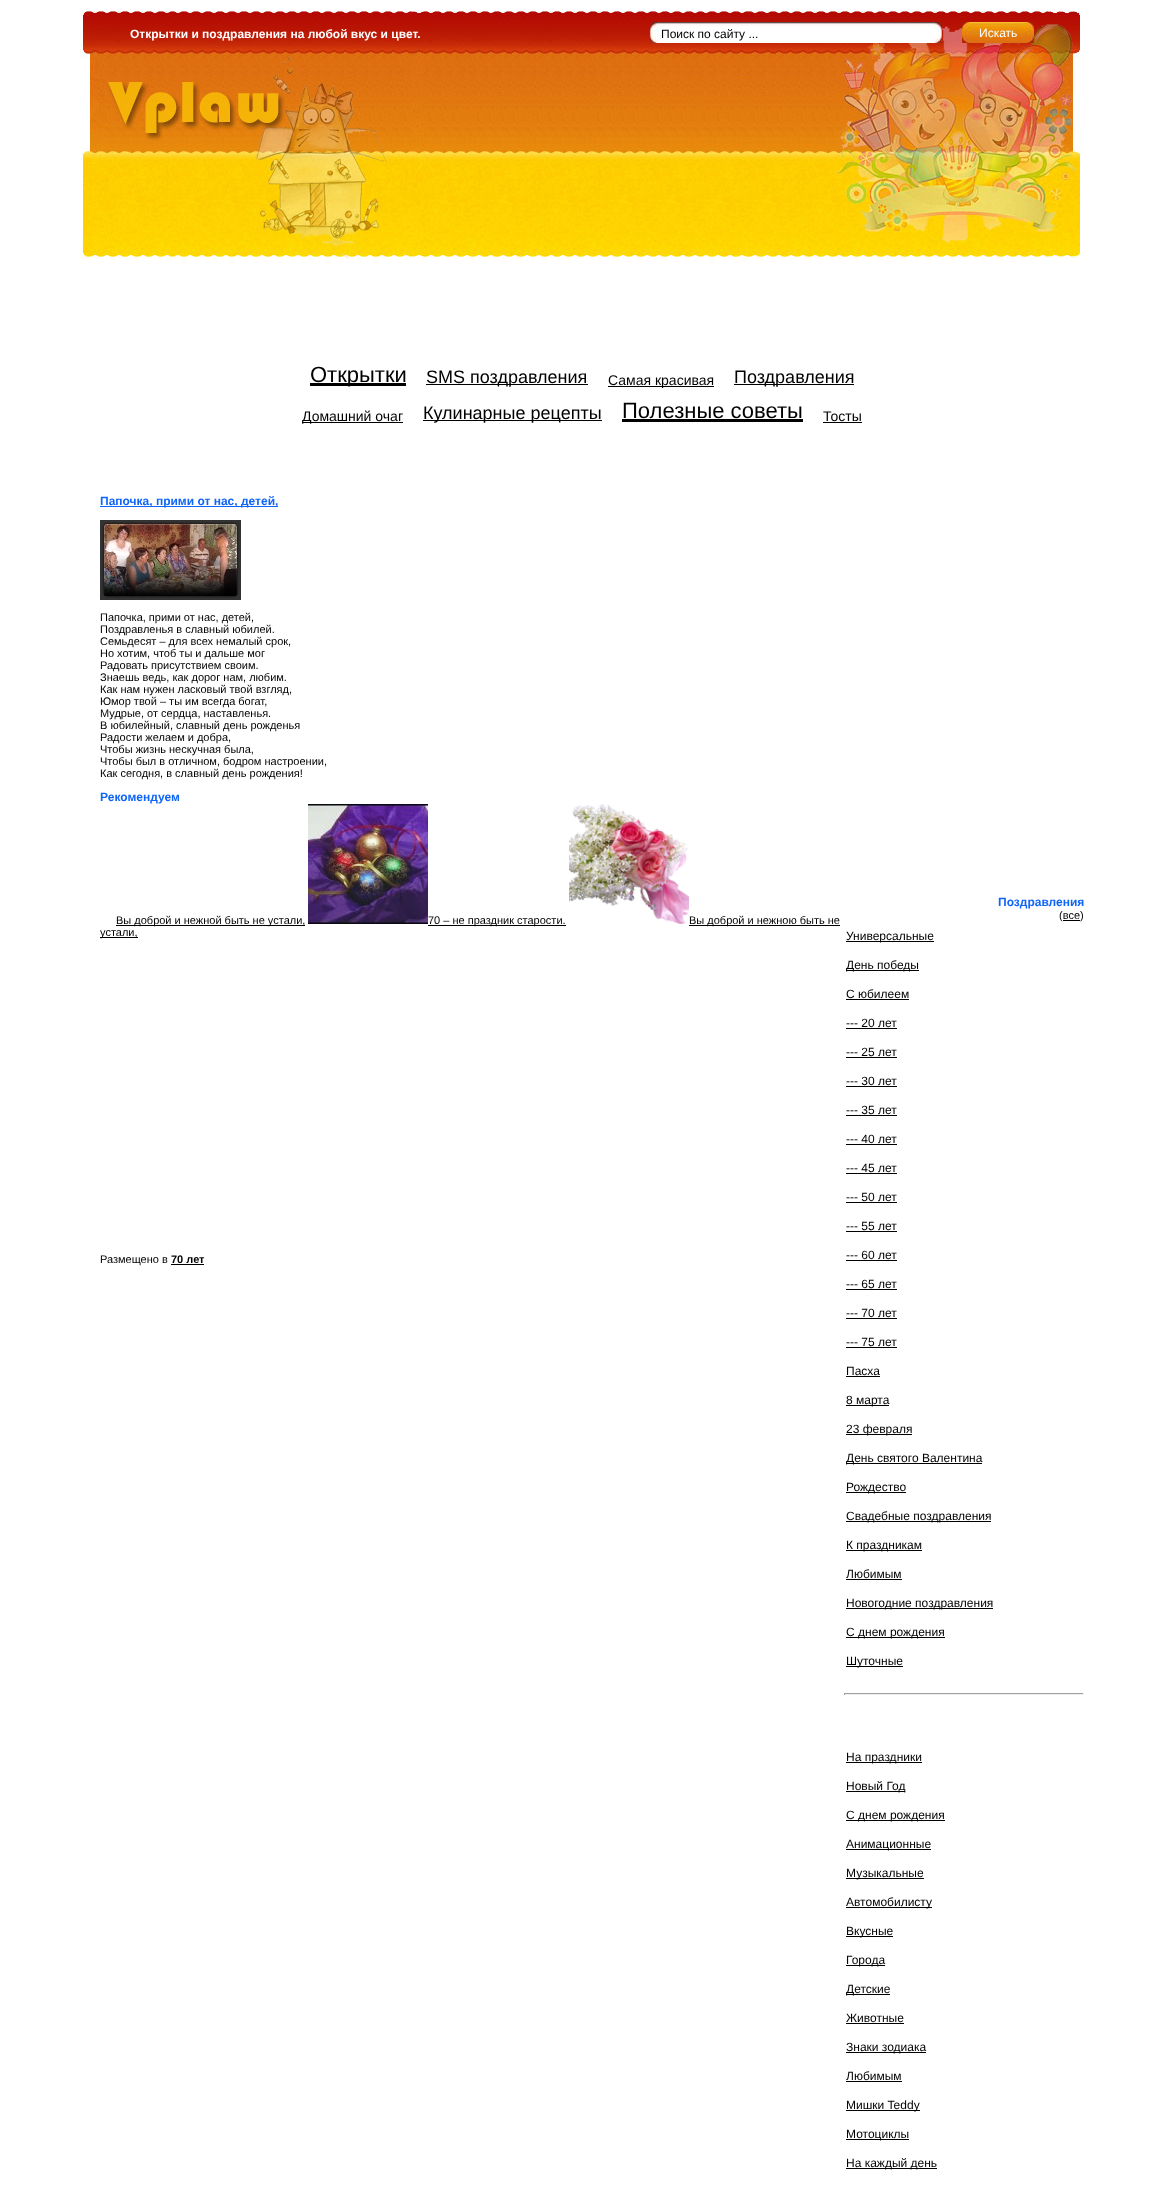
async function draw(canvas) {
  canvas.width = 1164;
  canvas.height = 2193;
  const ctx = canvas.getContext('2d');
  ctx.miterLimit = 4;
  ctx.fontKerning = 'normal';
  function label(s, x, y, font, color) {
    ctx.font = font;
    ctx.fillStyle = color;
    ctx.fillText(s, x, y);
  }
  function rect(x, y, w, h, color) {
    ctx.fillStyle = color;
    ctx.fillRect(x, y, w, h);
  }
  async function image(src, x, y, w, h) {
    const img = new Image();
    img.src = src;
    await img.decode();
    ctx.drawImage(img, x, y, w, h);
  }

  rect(0, 0, 1164, 2193, '#fff');
  await image('assets/img1.png', 80, 11, 1000, 248);
  label('Открытки и поздравления на любой вкус и цвет.', 130, 38, 'bold 12px Liberation Sans', '#fff');
  await image('assets/img2.png', 649, 22, 293, 21);
  rect(659, 26, 274, 16, '#fff');
  label('Поиск по сайту ...', 661, 38, '12px Liberation Sans', '#000');
  await image('assets/img3.png', 962, 22, 72, 21);
  label('Искать', 979, 37, '12px Liberation Sans', '#fff');
  rect(310, 383, 96, 3, '#000');
  label('Открытки', 310, 382, '22px Liberation Sans', '#000');
  rect(426, 384, 162, 1, '#000');
  label('SMS поздравления', 426, 383, '18px Liberation Sans', '#000');
  rect(608, 386, 106, 1, '#000');
  label('Самая красивая', 608, 385, '14px Liberation Sans', '#000');
  rect(734, 384, 120, 1, '#000');
  label('Поздравления', 734, 383, '18px Liberation Sans', '#000');
  rect(302, 422, 101, 1, '#000');
  label('Домашний очаг', 302, 421, '14px Liberation Sans', '#000');
  rect(423, 420, 179, 1, '#000');
  label('Кулинарные рецепты', 423, 419, '18px Liberation Sans', '#000');
  label('Полезные советы', 622, 418, '22px Liberation Sans', '#000');
  rect(622, 419, 181, 3, '#000');
  label('Тосты', 823, 421, '14px Liberation Sans', '#000');
  rect(823, 422, 39, 1, '#000');
  rect(100, 506, 178, 1, '#0f65f8');
  label('Папочка, прими от нас, детей,', 100, 505, 'bold 12px Liberation Sans', '#0f65f8');
  await image('assets/img4.png', 100, 520, 141, 80);
  label('Папочка, прими от нас, детей,', 100, 621, '11px Liberation Sans', '#000');
  label('Поздравленья в славный юбилей.', 100, 633, '11px Liberation Sans', '#000');
  label('Семьдесят – для всех немалый срок,', 100, 645, '11px Liberation Sans', '#000');
  label('Но хотим, чтоб ты и дальше мог', 100, 657, '11px Liberation Sans', '#000');
  label('Радовать присутствием своим.', 100, 669, '11px Liberation Sans', '#000');
  label('Знаешь ведь, как дорог нам, любим.', 100, 681, '11px Liberation Sans', '#000');
  label('Как нам нужен ласковый твой взгляд,', 100, 693, '11px Liberation Sans', '#000');
  label('Юмор твой – ты им всегда богат,', 100, 705, '11px Liberation Sans', '#000');
  label('Мудрые, от сердца, наставленья.', 100, 717, '11px Liberation Sans', '#000');
  label('В юбилейный, славный день рожденья', 100, 729, '11px Liberation Sans', '#000');
  label('Радости желаем и добра,', 100, 741, '11px Liberation Sans', '#000');
  label('Чтобы жизнь нескучная была,', 100, 753, '11px Liberation Sans', '#000');
  label('Чтобы был в отличном, бодром настроении,', 100, 765, '11px Liberation Sans', '#000');
  label('Как сегодня, в славный день рождения!', 100, 777, '11px Liberation Sans', '#000');
  label('Рекомендуем', 100, 801, 'bold 12px Liberation Sans', '#0f65f8');
  rect(116, 925, 189, 1, '#000');
  label('Вы доброй и нежной быть не устали,', 116, 924, '11px Liberation Sans', '#000');
  await image('assets/img5.png', 308, 804, 120, 120);
  rect(428, 925, 138, 1, '#000');
  label('70 – не праздник старости.', 428, 924, '11px Liberation Sans', '#000');
  await image('assets/img6.png', 569, 804, 120, 120);
  rect(689, 925, 151, 1, '#000');
  label('Вы доброй и нежною быть не', 689, 924, '11px Liberation Sans', '#000');
  rect(100, 937, 38, 1, '#000');
  label('устали,', 100, 936, '11px Liberation Sans', '#000');
  label('Размещено в', 100, 1263, '11px Liberation Sans', '#000');
  label('70 лет', 171, 1263, 'bold 11px Liberation Sans', '#000');
  rect(171, 1264, 33, 1, '#000');
  label('Поздравления', 998, 906, 'bold 12px Liberation Sans', '#0f65f8');
  label('(все)', 1059, 919, '11px Liberation Sans', '#000');
  rect(1063, 920, 17, 1, '#000');
  rect(846, 941, 88, 1, '#000');
  label('Универсальные', 846, 940, '12px Liberation Sans', '#000');
  rect(846, 970, 73, 1, '#000');
  label('День победы', 846, 969, '12px Liberation Sans', '#000');
  label('С юбилеем', 846, 998, '12px Liberation Sans', '#000');
  rect(846, 999, 63, 1, '#000');
  label('--- 20 лет', 846, 1027, '12px Liberation Sans', '#000');
  rect(846, 1028, 51, 1, '#000');
  label('--- 25 лет', 846, 1056, '12px Liberation Sans', '#000');
  rect(846, 1057, 51, 1, '#000');
  label('--- 30 лет', 846, 1085, '12px Liberation Sans', '#000');
  rect(846, 1086, 51, 1, '#000');
  label('--- 35 лет', 846, 1114, '12px Liberation Sans', '#000');
  rect(846, 1115, 51, 1, '#000');
  label('--- 40 лет', 846, 1143, '12px Liberation Sans', '#000');
  rect(846, 1144, 51, 1, '#000');
  label('--- 45 лет', 846, 1172, '12px Liberation Sans', '#000');
  rect(846, 1173, 51, 1, '#000');
  label('--- 50 лет', 846, 1201, '12px Liberation Sans', '#000');
  rect(846, 1202, 51, 1, '#000');
  label('--- 55 лет', 846, 1230, '12px Liberation Sans', '#000');
  rect(846, 1231, 51, 1, '#000');
  label('--- 60 лет', 846, 1259, '12px Liberation Sans', '#000');
  rect(846, 1260, 51, 1, '#000');
  label('--- 65 лет', 846, 1288, '12px Liberation Sans', '#000');
  rect(846, 1289, 51, 1, '#000');
  label('--- 70 лет', 846, 1317, '12px Liberation Sans', '#000');
  rect(846, 1318, 51, 1, '#000');
  label('--- 75 лет', 846, 1346, '12px Liberation Sans', '#000');
  rect(846, 1347, 51, 1, '#000');
  label('Пасха', 846, 1375, '12px Liberation Sans', '#000');
  rect(846, 1376, 34, 1, '#000');
  rect(846, 1405, 43, 1, '#000');
  label('8 марта', 846, 1404, '12px Liberation Sans', '#000');
  rect(846, 1434, 66, 1, '#000');
  label('23 февраля', 846, 1433, '12px Liberation Sans', '#000');
  rect(846, 1463, 136, 1, '#000');
  label('День святого Валентина', 846, 1462, '12px Liberation Sans', '#000');
  rect(846, 1492, 60, 1, '#000');
  label('Рождество', 846, 1491, '12px Liberation Sans', '#000');
  rect(846, 1521, 145, 1, '#000');
  label('Cвадебные поздравления', 846, 1520, '12px Liberation Sans', '#000');
  rect(846, 1550, 76, 1, '#000');
  label('К праздникам', 846, 1549, '12px Liberation Sans', '#000');
  label('Любимым', 846, 1578, '12px Liberation Sans', '#000');
  rect(846, 1579, 56, 1, '#000');
  rect(846, 1608, 147, 1, '#000');
  label('Новогодние поздравления', 846, 1607, '12px Liberation Sans', '#000');
  rect(846, 1637, 99, 1, '#000');
  label('С днем рождения', 846, 1636, '12px Liberation Sans', '#000');
  rect(846, 1666, 57, 1, '#000');
  label('Шуточные', 846, 1665, '12px Liberation Sans', '#000');
  rect(844, 1693, 240, 1, '#9f9f9f');
  rect(1083, 1693, 1, 2, '#eee');
  rect(844, 1694, 240, 1, '#eee');
  rect(844, 1693, 1, 2, '#9f9f9f');
  rect(846, 1762, 76, 1, '#000');
  label('На праздники', 846, 1761, '12px Liberation Sans', '#000');
  rect(846, 1791, 59, 1, '#000');
  label('Новый Год', 846, 1790, '12px Liberation Sans', '#000');
  rect(846, 1820, 99, 1, '#000');
  label('С днем рождения', 846, 1819, '12px Liberation Sans', '#000');
  rect(846, 1849, 85, 1, '#000');
  label('Анимационные', 846, 1848, '12px Liberation Sans', '#000');
  rect(846, 1878, 78, 1, '#000');
  label('Музыкальные', 846, 1877, '12px Liberation Sans', '#000');
  rect(846, 1907, 86, 1, '#000');
  label('Автомобилисту', 846, 1906, '12px Liberation Sans', '#000');
  rect(846, 1936, 47, 1, '#000');
  label('Вкусные', 846, 1935, '12px Liberation Sans', '#000');
  rect(846, 1965, 39, 1, '#000');
  label('Города', 846, 1964, '12px Liberation Sans', '#000');
  rect(846, 1994, 44, 1, '#000');
  label('Детские', 846, 1993, '12px Liberation Sans', '#000');
  label('Животные', 846, 2022, '12px Liberation Sans', '#000');
  rect(846, 2023, 58, 1, '#000');
  rect(846, 2052, 80, 1, '#000');
  label('Знаки зодиака', 846, 2051, '12px Liberation Sans', '#000');
  label('Любимым', 846, 2080, '12px Liberation Sans', '#000');
  rect(846, 2081, 56, 1, '#000');
  rect(846, 2110, 74, 1, '#000');
  label('Мишки Teddy', 846, 2109, '12px Liberation Sans', '#000');
  rect(846, 2139, 63, 1, '#000');
  label('Мотоциклы', 846, 2138, '12px Liberation Sans', '#000');
  rect(846, 2168, 91, 1, '#000');
  label('На каждый день', 846, 2167, '12px Liberation Sans', '#000');
}

draw(document.querySelector('canvas'));
